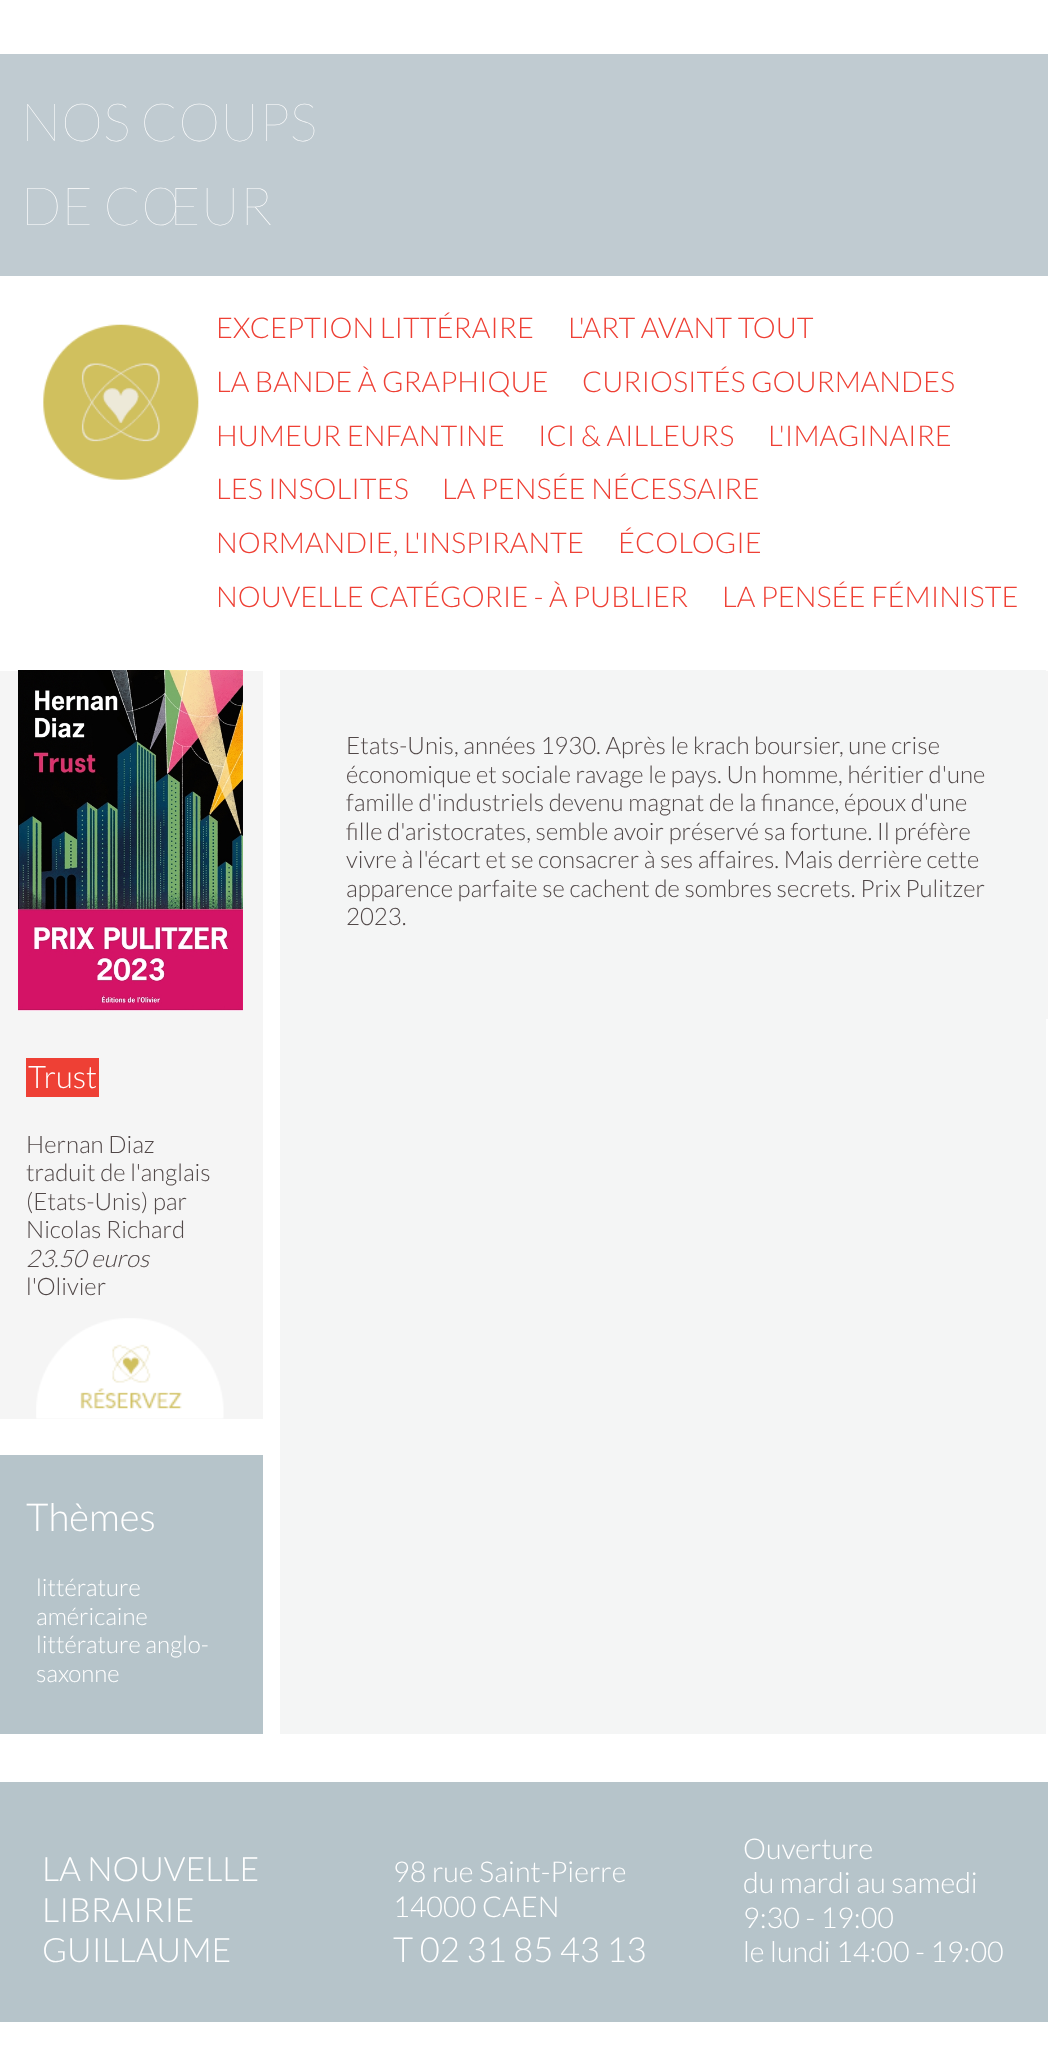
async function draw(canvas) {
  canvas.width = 1048;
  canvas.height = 2055;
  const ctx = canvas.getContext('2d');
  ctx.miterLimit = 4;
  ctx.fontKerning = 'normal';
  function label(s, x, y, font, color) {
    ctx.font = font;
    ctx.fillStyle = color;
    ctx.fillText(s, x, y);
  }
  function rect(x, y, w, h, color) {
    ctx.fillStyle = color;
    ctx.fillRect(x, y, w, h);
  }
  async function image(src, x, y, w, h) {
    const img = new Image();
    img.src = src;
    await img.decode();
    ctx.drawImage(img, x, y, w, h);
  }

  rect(0, 0, 1048, 2055, '#fff');
  rect(0, 54, 1048, 222, '#c0cbd1');
  label('NOS COUPS', 21, 141, '100 52.75px Lato', '#fff');
  label('DE CŒUR', 21, 225, '100 52.75px Lato', '#fff');
  await image('assets/img1.png', 43, 324, 156, 156);
  label('EXCEPTION LITTÉRAIRE', 216, 338, '300 28.75px Lato', '#ee4035');
  label('L\'ART AVANT TOUT', 568, 338, '300 28.75px Lato', '#ee4035');
  label('LA BANDE À GRAPHIQUE', 216, 392, '300 28.75px Lato', '#ee4035');
  label('CURIOSITÉS GOURMANDES', 582, 392, '300 28.75px Lato', '#ee4035');
  label('HUMEUR ENFANTINE', 216, 446, '300 28.75px Lato', '#ee4035');
  label('ICI & AILLEURS', 538, 446, '300 28.75px Lato', '#ee4035');
  label('L\'IMAGINAIRE', 768, 446, '300 28.75px Lato', '#ee4035');
  label('LES INSOLITES', 216, 499, '300 28.75px Lato', '#ee4035');
  label('LA PENSÉE NÉCESSAIRE', 442, 499, '300 28.75px Lato', '#ee4035');
  label('NORMANDIE, L\'INSPIRANTE', 216, 553, '300 28.75px Lato', '#ee4035');
  label('ÉCOLOGIE', 618, 553, '300 28.75px Lato', '#ee4035');
  label('NOUVELLE CATÉGORIE - À PUBLIER', 216, 607, '300 28.75px Lato', '#ee4035');
  label('LA PENSÉE FÉMINISTE', 722, 607, '300 28.75px Lato', '#ee4035');
  rect(280, 670, 766, 1064, '#f4f5f5');
  rect(1046, 671, 2, 348, '#f5f5f5');
  label('Etats-Unis, années 1930. Après le krach boursier, une crise', 346, 754, '300 24px Lato', '#514848');
  label('économique et sociale ravage le pays. Un homme, héritier d\'une', 346, 783, '300 24px Lato', '#514848');
  label('famille d\'industriels devenu magnat de la finance, époux d\'une', 346, 811, '300 24px Lato', '#514848');
  label('fille d\'aristocrates, semble avoir préservé sa fortune. Il préfère', 346, 840, '300 24px Lato', '#514848');
  label('vivre à l\'écart et se consacrer à ses affaires. Mais derrière cette', 346, 868, '300 24px Lato', '#514848');
  label('apparence parfaite se cachent de sombres secrets. Prix Pulitzer', 346, 897, '300 24px Lato', '#514848');
  label('2023.', 346, 925, '300 24px Lato', '#514848');
  rect(0, 671, 263, 748, '#f5f5f5');
  await image('assets/img2.png', 18, 670, 225, 341);
  rect(26, 1058, 73, 39, '#ee4035');
  label('Trust', 28, 1088, '300 31px Lato', '#fff');
  label('Hernan Diaz', 26, 1153, '300 24px Lato', '#514848');
  label('traduit de l\'anglais', 26, 1181, '300 24px Lato', '#514848');
  label('(Etats-Unis) par', 26, 1210, '300 24px Lato', '#514848');
  label('Nicolas Richard', 26, 1238, '300 24px Lato', '#514848');
  label('23.50 euros', 26, 1267, 'italic 300 24px Lato', '#514848');
  label('l\'Olivier', 26, 1295, '300 24px Lato', '#514848');
  await image('assets/img3.png', 36, 1318, 188, 101);
  rect(0, 1455, 263, 279, '#b6c4ca');
  label('Thèmes', 26, 1531, '300 38.5px Lato', '#fff');
  label('littérature', 36, 1596, '300 24px Lato', '#fff');
  label('américaine', 36, 1625, '300 24px Lato', '#fff');
  label('littérature anglo-', 36, 1653, '300 24px Lato', '#fff');
  label('saxonne', 36, 1682, '300 24px Lato', '#fff');
  rect(0, 1782, 1048, 240, '#b6c4ca');
  label('LA NOUVELLE', 42, 1881, '300 33.5px Lato', '#fff');
  label('LIBRAIRIE', 42, 1922, '300 33.5px Lato', '#fff');
  label('GUILLAUME', 42, 1962, '300 33.5px Lato', '#fff');
  label('98 rue Saint-Pierre', 393, 1882, '300 28.75px Lato', '#fff');
  label('14000 CAEN', 393, 1917, '300 28.75px Lato', '#fff');
  label('T 02 31 85 43 13', 393, 1962, '300 34.5px Lato', '#fff');
  label('Ouverture', 743, 1859, '300 28.75px Lato', '#fff');
  label('du mardi au samedi', 743, 1893, '300 28.75px Lato', '#fff');
  label('9:30 - 19:00', 743, 1928, '300 28.75px Lato', '#fff');
  label('le lundi 14:00 - 19:00', 743, 1962, '300 28.75px Lato', '#fff');
}

draw(document.querySelector('canvas'));
